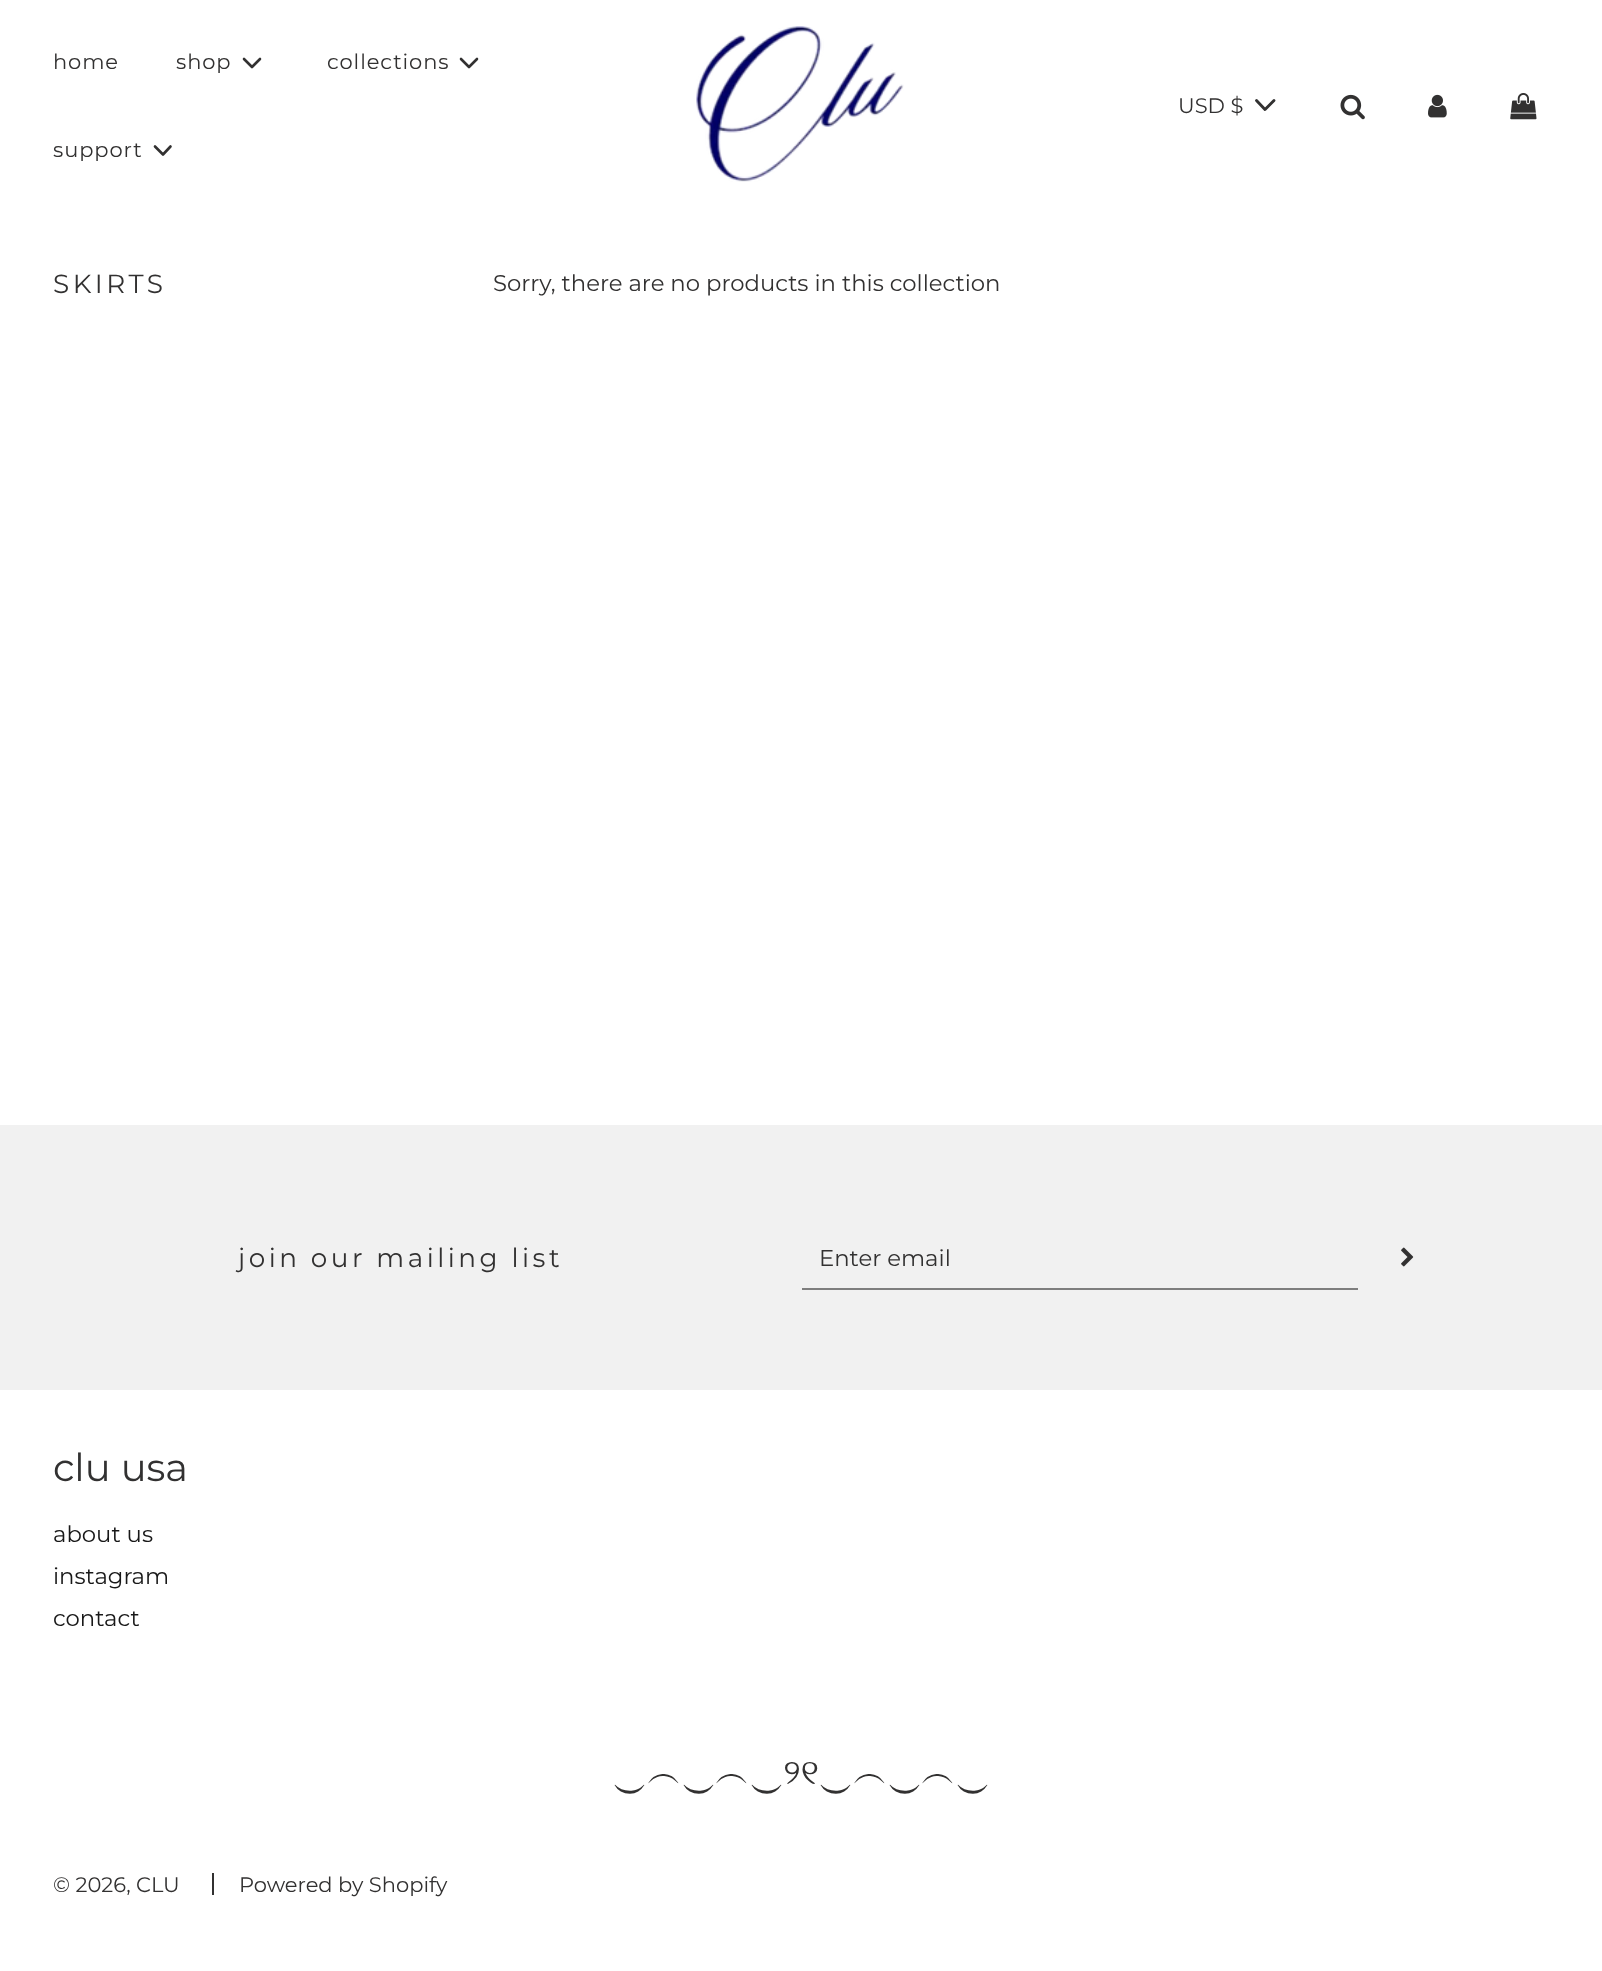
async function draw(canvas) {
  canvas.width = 1602;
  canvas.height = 1971;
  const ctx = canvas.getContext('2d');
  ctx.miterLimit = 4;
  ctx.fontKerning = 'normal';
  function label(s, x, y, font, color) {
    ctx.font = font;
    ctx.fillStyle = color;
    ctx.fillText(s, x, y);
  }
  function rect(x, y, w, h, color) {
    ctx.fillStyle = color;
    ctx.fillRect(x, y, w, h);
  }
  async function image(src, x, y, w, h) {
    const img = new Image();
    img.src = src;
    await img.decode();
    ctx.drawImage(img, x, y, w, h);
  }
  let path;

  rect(0, 0, 1602, 1971, '#fff');
  ctx.letterSpacing = '0.9px';
  label('home', 53, 69, '21px Montserrat', '#323131');
  label('shop', 176, 69, '21px Montserrat', '#323131');
  path = new Path2D('M244 59L252 67L260 59');
  ctx.strokeStyle = '#323131';
  ctx.lineWidth = 2.6;
  ctx.lineCap = 'round';
  ctx.lineJoin = 'round';
  ctx.stroke(path);
  label('collections', 327, 69, '21px Montserrat', '#323131');
  path = new Path2D('M461 59L469 67L477 59');
  ctx.stroke(path);
  label('support', 53, 157, '21px Montserrat', '#323131');
  path = new Path2D('M155 146.5L163 154.5L170.5 146.5');
  ctx.stroke(path);
  await image('assets/img1.png', 696, 26, 208, 156);
  ctx.letterSpacing = '0px';
  label('USD $', 1178, 113, '21px Montserrat', '#323131');
  path = new Path2D('M1256.5 100.5L1265 109.5L1274 100.5');
  ctx.lineWidth = 2.9;
  ctx.stroke(path);
  await image('assets/img2.png', 1340, 94, 25, 26);
  await image('assets/img3.png', 1428, 94, 19, 24);
  await image('assets/img4.png', 1510, 93, 27, 27);
  ctx.letterSpacing = '3.5px';
  label('SKIRTS', 53, 293, '26.25px Montserrat', '#323131');
  ctx.letterSpacing = '0px';
  label('Sorry, there are no products in this collection', 493, 291, '22.75px Montserrat', '#323131');
  rect(0, 1125, 1602, 265, '#f1f1f1');
  ctx.letterSpacing = '3.5px';
  label('join our mailing list', 238, 1267, '26.25px Montserrat', '#323131');
  rect(802, 1288, 556, 2, '#7e7e7e');
  ctx.letterSpacing = '0px';
  label('Enter email', 819, 1266, '22.75px Montserrat', '#323131');
  await image('assets/img5.png', 1401, 1247, 13, 20);
  label('clu usa', 53, 1481, '38.5px Montserrat', '#323131');
  label('about us', 53, 1542, '22.75px Montserrat', '#181818');
  label('instagram', 53, 1584, '22.75px Montserrat', '#181818');
  label('contact', 53, 1626, '22.75px Montserrat', '#181818');
  label('︵', 647, 1784, '500 35px WenQuanYi Zen Hei', '#323131');
  label('︵', 715, 1784, '500 35px WenQuanYi Zen Hei', '#323131');
  label('‿୨୧‿', 750, 1784, '35px FreeSerif', '#323131');
  label('︵', 853, 1784, '500 35px WenQuanYi Zen Hei', '#323131');
  label('︵', 921, 1784, '500 35px WenQuanYi Zen Hei', '#323131');
  label('‿', 613, 1784, '35px FreeSerif', '#323131');
  label('‿', 682, 1784, '35px FreeSerif', '#323131');
  label('‿', 888, 1784, '35px FreeSerif', '#323131');
  label('‿', 956, 1784, '35px FreeSerif', '#323131');
  label('© 2026, CLU', 53, 1892, '21px Montserrat', '#323131');
  rect(212, 1873, 2, 22, '#323131');
  label('Powered by Shopify', 239, 1892, '21px Montserrat', '#323131');
}

draw(document.querySelector('canvas'));
